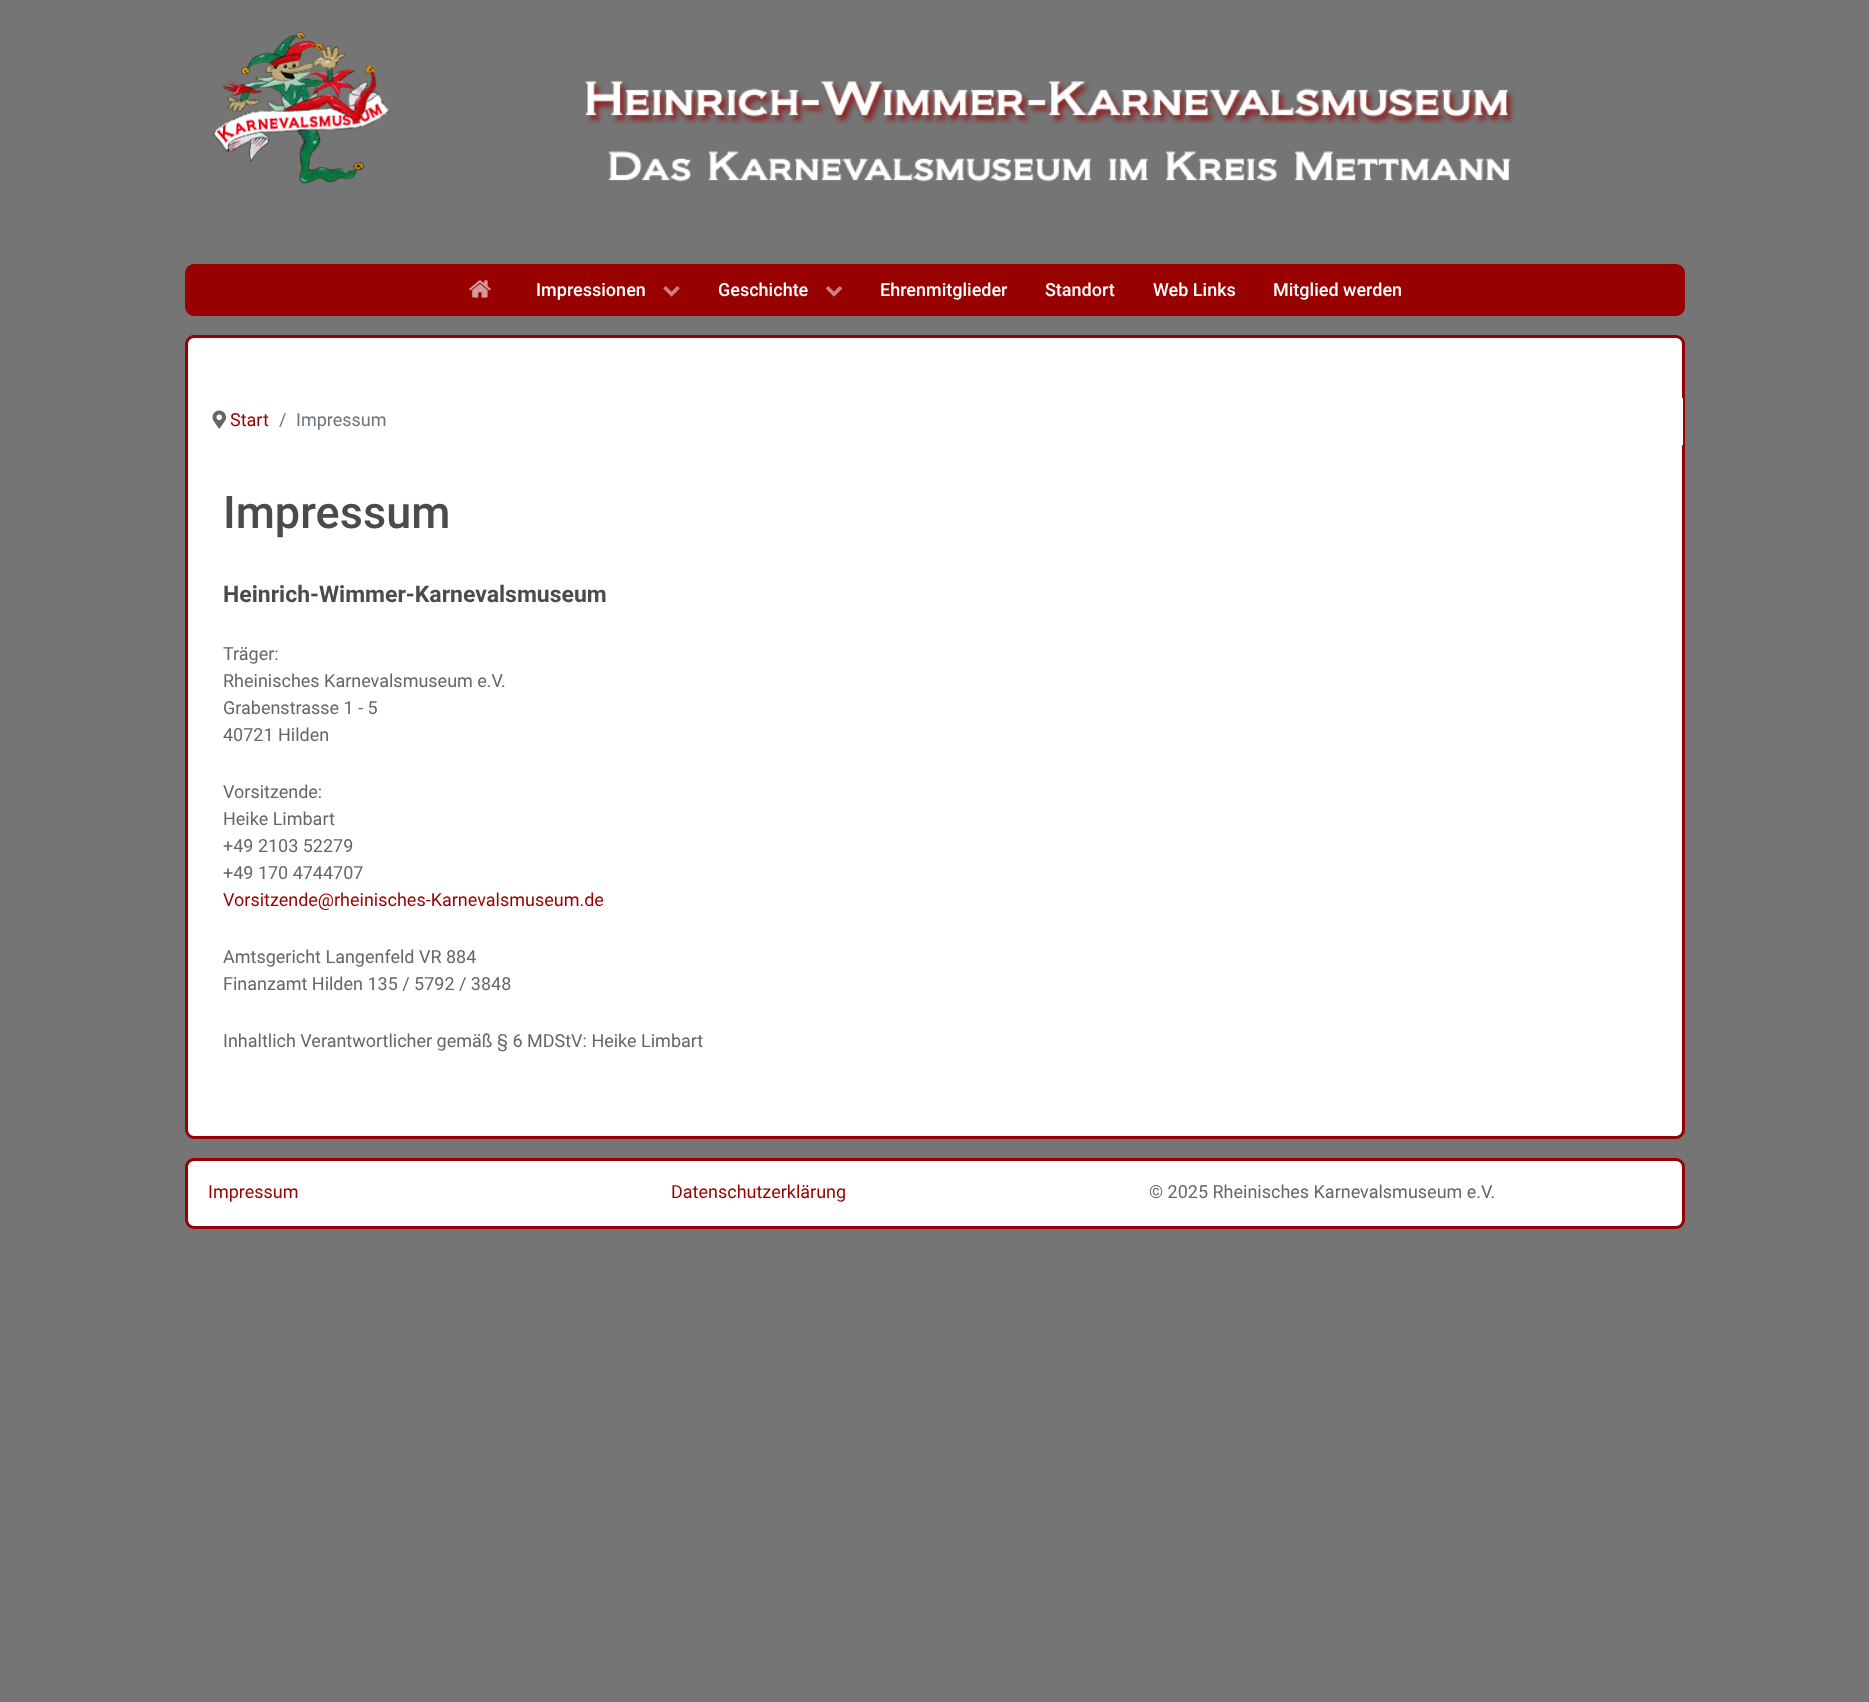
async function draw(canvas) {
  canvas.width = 1869;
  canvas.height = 1702;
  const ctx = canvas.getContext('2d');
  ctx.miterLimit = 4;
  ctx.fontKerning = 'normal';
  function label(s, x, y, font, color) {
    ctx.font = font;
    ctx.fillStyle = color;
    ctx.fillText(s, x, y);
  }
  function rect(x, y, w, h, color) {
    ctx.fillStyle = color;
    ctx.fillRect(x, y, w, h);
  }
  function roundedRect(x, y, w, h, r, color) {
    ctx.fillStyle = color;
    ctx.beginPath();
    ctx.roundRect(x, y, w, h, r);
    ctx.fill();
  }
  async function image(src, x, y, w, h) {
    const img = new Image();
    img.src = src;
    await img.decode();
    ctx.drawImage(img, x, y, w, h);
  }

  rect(0, 0, 1869, 1702, '#757575');
  await image('assets/img1.png', 213, 32, 177, 152);
  await image('assets/img2.png', 585, 81, 930, 101);
  roundedRect(185, 264, 1500, 52, 9, '#900');
  await image('assets/img3.png', 469, 280, 22, 18);
  label('Impressionen', 536, 296, '500 18px Roboto', '#fff');
  await image('assets/img4.png', 663, 286, 17, 11);
  label('Geschichte', 718, 296, '500 18px Roboto', '#fff');
  await image('assets/img5.png', 826, 286, 16, 11);
  label('Ehrenmitglieder', 880, 296, '500 18px Roboto', '#fff');
  label('Standort', 1045, 296, '500 18px Roboto', '#fff');
  label('Web Links', 1153, 296, '500 18px Roboto', '#fff');
  label('Mitglied werden', 1273, 296, '500 18px Roboto', '#fff');
  ctx.beginPath();
  ctx.roundRect(186.5, 336.5, 1497, 801, 7.5);
  ctx.fill();
  ctx.strokeStyle = '#900';
  ctx.lineWidth = 3;
  ctx.stroke();
  rect(1682, 398, 1, 47, '#fff');
  await image('assets/img6.png', 212, 410, 14, 19);
  label('Start', 230, 426, '18px Roboto', '#900');
  label('/', 279, 426, '18px Roboto', '#6c757d');
  label('Impressum', 296, 426, '18px Roboto', '#6c757d');
  label('Impressum', 223, 528, '500 45px Roboto', '#4e4a49');
  label('Heinrich-Wimmer-Karnevalsmuseum', 223, 602, 'bold 23px Roboto', '#4e4a49');
  label('Träger:', 223, 660, '18px Roboto', '#666');
  label('Rheinisches Karnevalsmuseum e.V.', 223, 687, '18px Roboto', '#666');
  label('Grabenstrasse 1 - 5', 223, 714, '18px Roboto', '#666');
  label('40721 Hilden', 223, 741, '18px Roboto', '#666');
  label('Vorsitzende:', 223, 798, '18px Roboto', '#666');
  label('Heike Limbart', 223, 825, '18px Roboto', '#666');
  label('+49 2103 52279', 223, 852, '18px Roboto', '#666');
  label('+49 170 4744707', 223, 879, '18px Roboto', '#666');
  label('Vorsitzende@rheinisches-Karnevalsmuseum.de', 223, 906, '18px Roboto', '#900');
  label('Amtsgericht Langenfeld VR 884', 223, 963, '18px Roboto', '#666');
  label('Finanzamt Hilden 135 / 5792 / 3848', 223, 990, '18px Roboto', '#666');
  label('Inhaltlich Verantwortlicher gemäß § 6 MDStV: Heike Limbart', 223, 1047, '18px Roboto', '#666');
  ctx.fillStyle = '#fff';
  ctx.beginPath();
  ctx.roundRect(186.5, 1159.5, 1497, 68, 7.5);
  ctx.fill();
  ctx.stroke();
  label('Impressum', 208, 1198, '18px Roboto', '#900');
  label('Datenschutzerklärung', 671, 1198, '18px Roboto', '#900');
  label('© 2025 Rheinisches Karnevalsmuseum e.V.', 1149, 1198, '18px Roboto', '#666');
}

draw(document.querySelector('canvas'));
